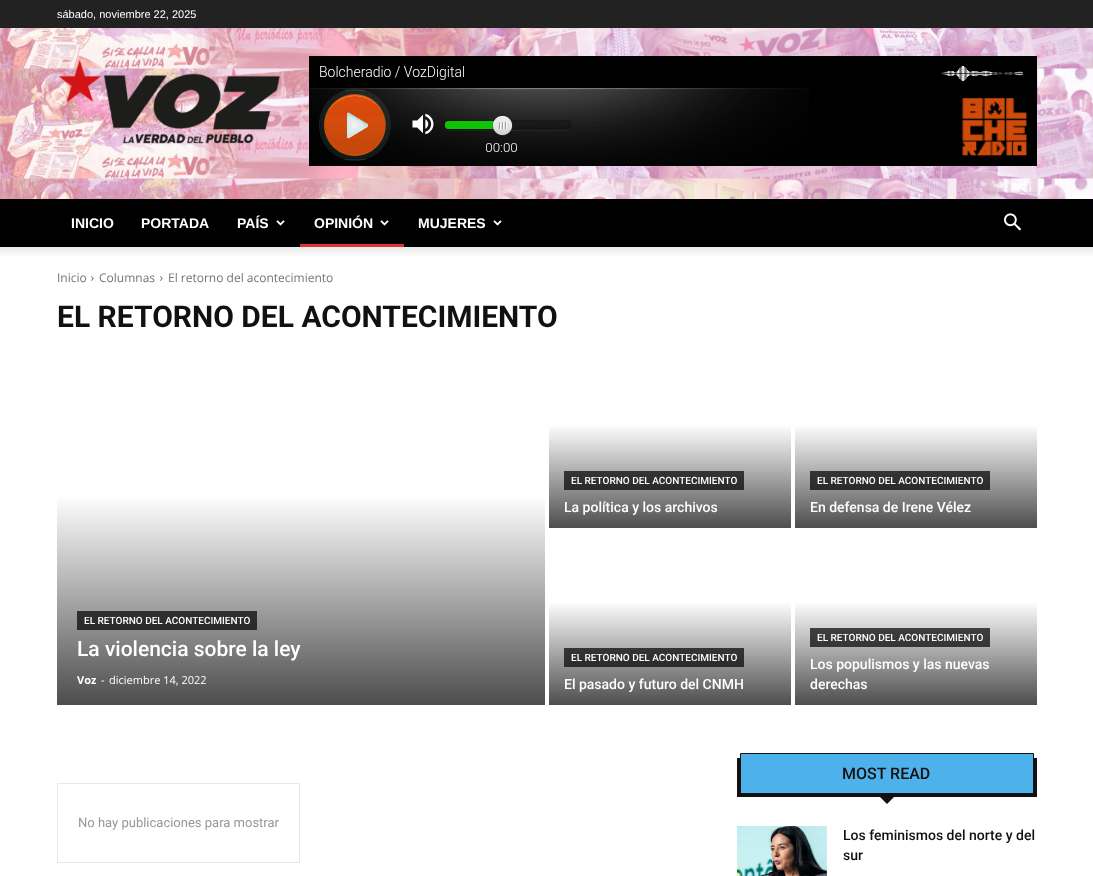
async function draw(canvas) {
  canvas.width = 1093;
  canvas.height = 876;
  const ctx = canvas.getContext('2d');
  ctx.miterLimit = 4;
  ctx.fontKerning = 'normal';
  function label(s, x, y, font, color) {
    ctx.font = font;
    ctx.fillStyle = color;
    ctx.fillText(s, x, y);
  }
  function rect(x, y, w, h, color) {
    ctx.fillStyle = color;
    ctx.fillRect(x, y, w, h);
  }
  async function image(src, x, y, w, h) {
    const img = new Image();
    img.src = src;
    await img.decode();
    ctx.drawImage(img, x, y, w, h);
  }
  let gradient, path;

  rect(0, 0, 1093, 876, '#fff');
  rect(0, 0, 1093, 28, '#222');
  label('sábado, noviembre 22, 2025', 57, 18, '11px Liberation Sans', '#fff');
  await image('assets/img1.png', 0, 28, 1093, 171);
  await image('assets/img2.png', 58, 59, 222, 85);
  await image('assets/img3.png', 309, 56, 728, 110);
  rect(0, 199, 1093, 48, '#000');
  label('INICIO', 71, 228, 'bold 14px Liberation Sans', '#fff');
  label('PORTADA', 141, 228, 'bold 14px Liberation Sans', '#fff');
  label('PAÍS', 237, 228, 'bold 14px Liberation Sans', '#fff');
  await image('assets/img4.png', 276, 220, 9, 6);
  label('OPINIÓN', 314, 228, 'bold 14px Liberation Sans', '#fff');
  await image('assets/img4.png', 380, 220, 9, 6);
  rect(300, 244, 104, 3, '#d33');
  label('MUJERES', 418, 228, 'bold 14px Liberation Sans', '#fff');
  await image('assets/img4.png', 493, 220, 9, 6);
  await image('assets/img5.png', 1004, 213, 17, 18);
  await image('assets/img6.png', 0, 247, 1093, 9);
  label('Inicio', 57, 282, '12px Open Sans', '#747474');
  await image('assets/img7.png', 91, 276, 3, 5);
  label('Columnas', 99, 282, '12px Open Sans', '#747474');
  await image('assets/img7.png', 160, 276, 3, 5);
  label('El retorno del acontecimiento', 168, 282, '12px Open Sans', '#747474');
  label('EL RETORNO DEL ACONTECIMIENTO', 57, 327, 'bold 30px Roboto', '#111');
  gradient = ctx.createLinearGradient(301, 705, 301, 355);
  gradient.addColorStop(0, '#4d4d4d');
  gradient.addColorStop(0.6, '#fff');
  gradient.addColorStop(1, '#fff');
  ctx.fillStyle = gradient;
  ctx.fillRect(57, 498, 488, 207);
  gradient = ctx.createLinearGradient(301, 705, 301, 355);
  gradient.addColorStop(0, '#171717');
  gradient.addColorStop(0.6, '#4d4d4d');
  gradient.addColorStop(1, '#4d4d4d');
  ctx.fillStyle = gradient;
  ctx.fillRect(77, 611, 180, 19);
  label('EL RETORNO DEL ACONTECIMIENTO', 84, 624, '500 10px Roboto', '#fff');
  label('La violencia sobre la ley', 77, 656, '500 21px Roboto', '#fff');
  label('Voz', 77, 684, 'bold 11px Open Sans', '#fff');
  label('-', 101, 684, '11px Open Sans', '#fff');
  label('diciembre 14, 2022', 109, 684, '11px Open Sans', '#fff');
  gradient = ctx.createLinearGradient(670, 528, 670, 355);
  gradient.addColorStop(0, '#4d4d4d');
  gradient.addColorStop(0.6, '#fff');
  gradient.addColorStop(1, '#fff');
  ctx.fillStyle = gradient;
  ctx.fillRect(549, 426, 242, 102);
  gradient = ctx.createLinearGradient(670, 528, 670, 355);
  gradient.addColorStop(0, '#171717');
  gradient.addColorStop(0.6, '#4d4d4d');
  gradient.addColorStop(1, '#4d4d4d');
  ctx.fillStyle = gradient;
  ctx.fillRect(564, 471, 180, 19);
  label('EL RETORNO DEL ACONTECIMIENTO', 571, 484, '500 10px Roboto', '#fff');
  label('La política y los archivos', 564, 512, '500 14px Roboto', '#fff');
  gradient = ctx.createLinearGradient(916, 528, 916, 355);
  gradient.addColorStop(0, '#4d4d4d');
  gradient.addColorStop(0.6, '#fff');
  gradient.addColorStop(1, '#fff');
  ctx.fillStyle = gradient;
  ctx.fillRect(795, 426, 242, 102);
  gradient = ctx.createLinearGradient(916, 528, 916, 355);
  gradient.addColorStop(0, '#171717');
  gradient.addColorStop(0.6, '#4d4d4d');
  gradient.addColorStop(1, '#4d4d4d');
  ctx.fillStyle = gradient;
  ctx.fillRect(810, 471, 180, 19);
  label('EL RETORNO DEL ACONTECIMIENTO', 817, 484, '500 10px Roboto', '#fff');
  label('En defensa de Irene Vélez', 810, 512, '500 14px Roboto', '#fff');
  gradient = ctx.createLinearGradient(670, 705, 670, 532);
  gradient.addColorStop(0, '#4d4d4d');
  gradient.addColorStop(0.6, '#fff');
  gradient.addColorStop(1, '#fff');
  ctx.fillStyle = gradient;
  ctx.fillRect(549, 603, 242, 102);
  gradient = ctx.createLinearGradient(670, 705, 670, 532);
  gradient.addColorStop(0, '#171717');
  gradient.addColorStop(0.6, '#4d4d4d');
  gradient.addColorStop(1, '#4d4d4d');
  ctx.fillStyle = gradient;
  ctx.fillRect(564, 648, 180, 19);
  label('EL RETORNO DEL ACONTECIMIENTO', 571, 661, '500 10px Roboto', '#fff');
  label('El pasado y futuro del CNMH', 564, 689, '500 14px Roboto', '#fff');
  gradient = ctx.createLinearGradient(916, 705, 916, 532);
  gradient.addColorStop(0, '#4d4d4d');
  gradient.addColorStop(0.6, '#fff');
  gradient.addColorStop(1, '#fff');
  ctx.fillStyle = gradient;
  ctx.fillRect(795, 603, 242, 102);
  gradient = ctx.createLinearGradient(916, 705, 916, 532);
  gradient.addColorStop(0, '#171717');
  gradient.addColorStop(0.6, '#4d4d4d');
  gradient.addColorStop(1, '#4d4d4d');
  ctx.fillStyle = gradient;
  ctx.fillRect(810, 628, 180, 19);
  label('EL RETORNO DEL ACONTECIMIENTO', 817, 641, '500 10px Roboto', '#fff');
  label('Los populismos y las nuevas', 810, 669, '500 14px Roboto', '#fff');
  label('derechas', 810, 689, '500 14px Roboto', '#fff');
  ctx.strokeStyle = '#e8e8e8';
  ctx.strokeRect(57.5, 783.5, 242, 79);
  label('No hay publicaciones para mostrar', 78, 827, '13px Roboto', '#979797');
  rect(737, 758, 300, 39, '#111');
  ctx.fillStyle = '#4db2ec';
  ctx.beginPath();
  ctx.rect(740.5, 753.5, 293, 40);
  ctx.fill();
  ctx.strokeStyle = '#111';
  ctx.stroke();
  label('MOST READ', 842, 779, '500 16px Roboto', '#111');
  path = new Path2D('M879 796H895L887 804Z');
  ctx.fill(path);
  await image('assets/img8.png', 736, 826, 91, 50);
  label('Los feminismos del norte y del', 843, 840, '500 14px Roboto', '#111');
  label('sur', 843, 860, '500 14px Roboto', '#111');
}

draw(document.querySelector('canvas'));
